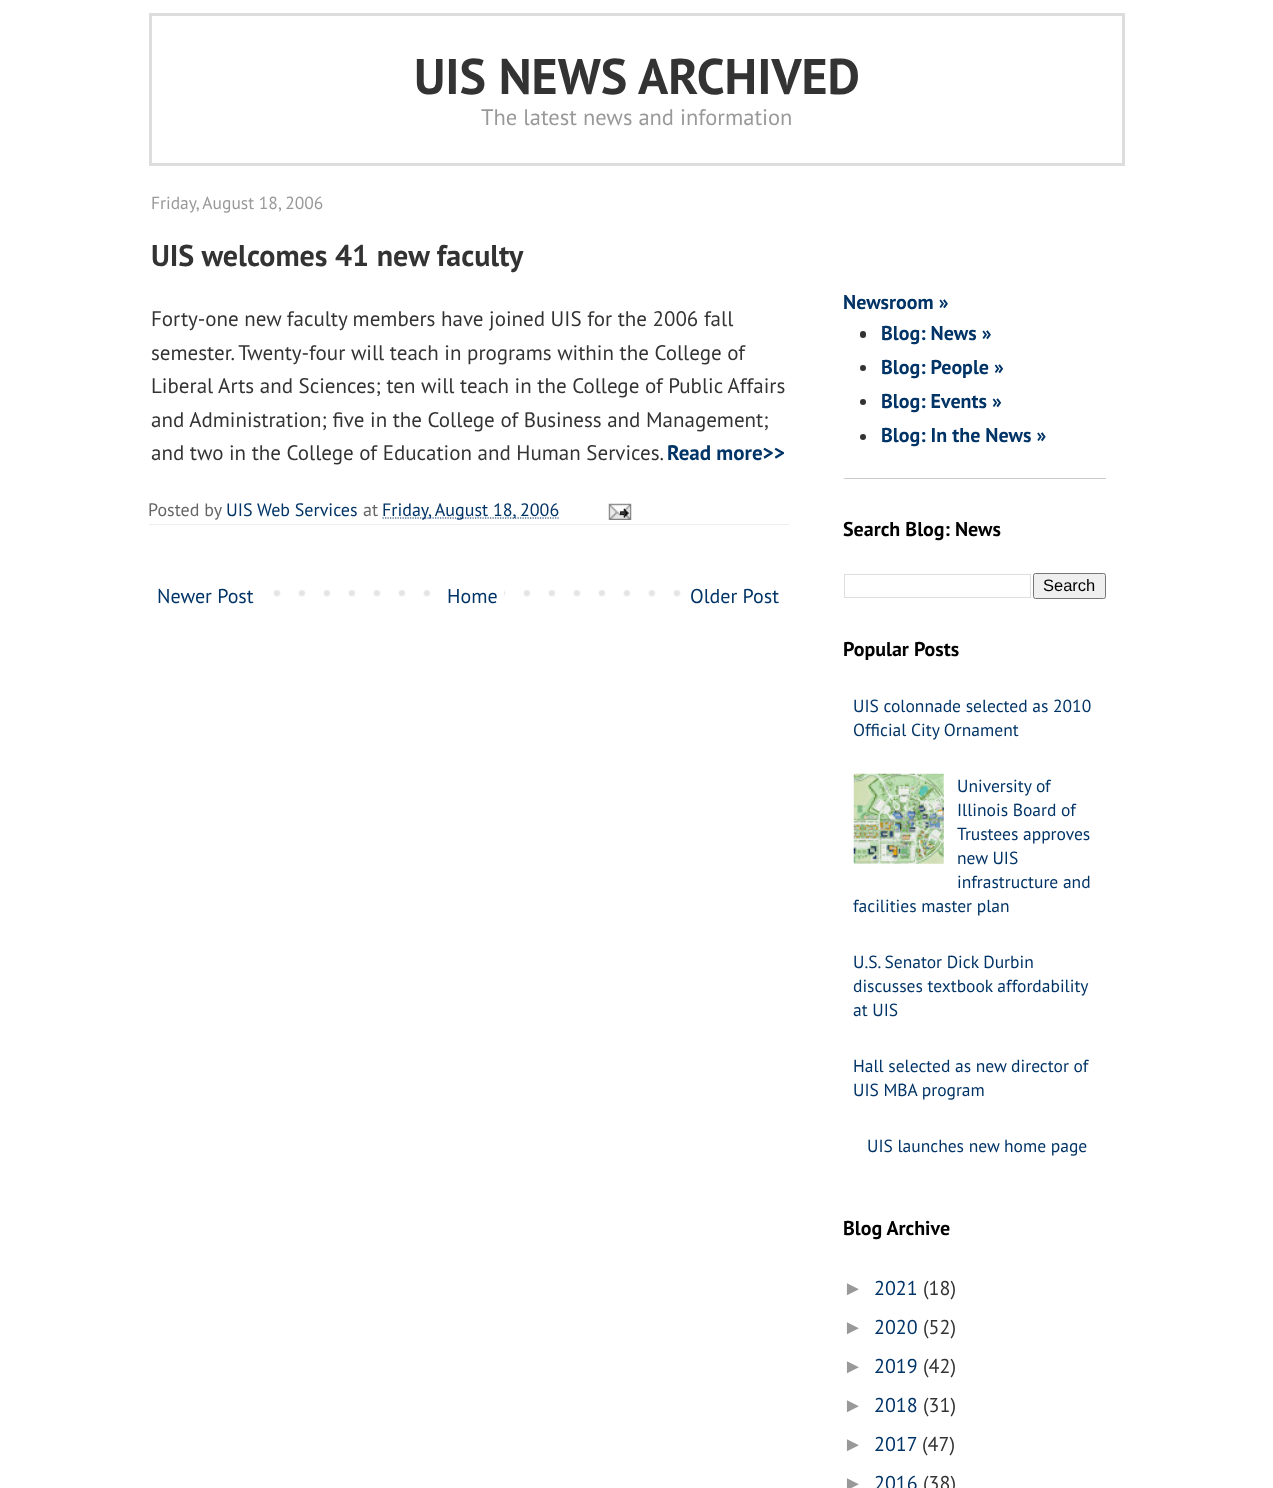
async function draw(canvas) {
  canvas.width = 1273;
  canvas.height = 1488;
  const ctx = canvas.getContext('2d');
  ctx.miterLimit = 4;
  ctx.fontKerning = 'normal';
  function label(s, x, y, font, color) {
    ctx.font = font;
    ctx.fillStyle = color;
    ctx.fillText(s, x, y);
  }
  function rect(x, y, w, h, color) {
    ctx.fillStyle = color;
    ctx.fillRect(x, y, w, h);
  }
  function roundedRect(x, y, w, h, r, color) {
    ctx.fillStyle = color;
    ctx.beginPath();
    ctx.roundRect(x, y, w, h, r);
    ctx.fill();
  }
  async function image(src, x, y, w, h) {
    const img = new Image();
    img.src = src;
    await img.decode();
    ctx.drawImage(img, x, y, w, h);
  }
  let path;

  rect(0, 0, 1273, 1488, '#fff');
  ctx.strokeStyle = '#ddd';
  ctx.lineWidth = 3;
  ctx.strokeRect(150.5, 14.5, 973, 150);
  label('UIS NEWS ARCHIVED', 414, 94, 'bold 50px PT Sans', '#333');
  label('The latest news and information', 481, 125, '22.5px PT Sans', '#999');
  label('Friday, August 18, 2006', 151, 209, '17.5px PT Sans', '#999');
  label('UIS welcomes 41 new faculty', 151, 266, 'bold 30px PT Sans', '#333');
  label('Forty-one new faculty members have joined UIS for the 2006 fall', 151, 326, '21px PT Sans', '#333');
  label('semester. Twenty-four will teach in programs within the College of', 151, 360, '21px PT Sans', '#333');
  label('Liberal Arts and Sciences; ten will teach in the College of Public Affairs', 151, 393, '21px PT Sans', '#333');
  label('and Administration; five in the College of Business and Management;', 151, 427, '21px PT Sans', '#333');
  label('and two in the College of Education and Human Services.', 151, 460, '21px PT Sans', '#333');
  label('Read more>>', 667, 460, 'bold 21px PT Sans', '#036');
  rect(149, 524, 640, 1, '#eee');
  label('Posted by', 148, 516, '18px PT Sans', '#666');
  label('UIS Web Services', 226, 516, '18px PT Sans', '#036');
  label('at', 363, 516, '18px PT Sans', '#666');
  path = new Path2D('M382.5 518H559.5');
  ctx.strokeStyle = '#036';
  ctx.lineWidth = 1.2;
  ctx.setLineDash([1.25, 1.25]);
  ctx.stroke(path);
  label('Friday, August 18, 2006', 382, 516, '18px PT Sans', '#036');
  await image('assets/img1.png', 608, 503, 24, 17);
  await image('assets/img2.png', 273, 590, 408, 7);
  label('Newer Post', 157, 603, '20px PT Sans', '#036');
  rect(448, 590, 56, 7, '#fff');
  label('Home', 447, 603, '20px PT Sans', '#036');
  label('Older Post', 690, 603, '20px PT Sans', '#036');
  label('Newsroom »', 843, 309, 'bold 20px PT Sans', '#036');
  rect(844, 478, 262, 1, '#ccc');
  roundedRect(860, 331, 6, 7, 3, '#333');
  label('Blog: News »', 881, 340, 'bold 20px PT Sans', '#036');
  ctx.fillStyle = '#333';
  ctx.beginPath();
  ctx.arc(863, 368, 3, 0, 2 * Math.PI);
  ctx.fill();
  label('Blog: People »', 881, 374, 'bold 20px PT Sans', '#036');
  ctx.fillStyle = '#333';
  ctx.beginPath();
  ctx.arc(863, 402, 3, 0, 2 * Math.PI);
  ctx.fill();
  label('Blog: Events »', 881, 408, 'bold 20px PT Sans', '#036');
  ctx.fillStyle = '#333';
  ctx.beginPath();
  ctx.arc(863, 437, 3, 0, 2 * Math.PI);
  ctx.fill();
  label('Blog: In the News »', 881, 442, 'bold 20px PT Sans', '#036');
  label('Search Blog: News', 843, 536, 'bold 20px PT Sans', '#000');
  ctx.strokeStyle = '#ddd';
  ctx.lineWidth = 1;
  ctx.setLineDash([]);
  ctx.strokeRect(844.5, 574.5, 186, 23);
  ctx.fillStyle = '#efefef';
  ctx.beginPath();
  ctx.roundRect(1033.5, 573.5, 72, 25, 2);
  ctx.fill();
  ctx.strokeStyle = '#767676';
  ctx.stroke();
  label('Search', 1043, 591, '16.5px Liberation Sans', '#000');
  label('Popular Posts', 843, 656, 'bold 20px PT Sans', '#000');
  label('UIS colonnade selected as 2010', 853, 712, '17.5px PT Sans', '#036');
  label('Official City Ornament', 853, 736, '17.5px PT Sans', '#036');
  await image('assets/img3.png', 853, 773, 91, 91);
  label('University of', 957, 792, '17.5px PT Sans', '#036');
  label('Illinois Board of', 957, 816, '17.5px PT Sans', '#036');
  label('Trustees approves', 957, 840, '17.5px PT Sans', '#036');
  label('new UIS', 957, 864, '17.5px PT Sans', '#036');
  label('infrastructure and', 957, 888, '17.5px PT Sans', '#036');
  label('facilities master plan', 853, 912, '17.5px PT Sans', '#036');
  label('U.S. Senator Dick Durbin', 853, 968, '17.5px PT Sans', '#036');
  label('discusses textbook affordability', 853, 992, '17.5px PT Sans', '#036');
  label('at UIS', 853, 1016, '17.5px PT Sans', '#036');
  label('Hall selected as new director of', 853, 1072, '17.5px PT Sans', '#036');
  label('UIS MBA program', 853, 1096, '17.5px PT Sans', '#036');
  label('UIS launches new home page', 867, 1152, '17.5px PT Sans', '#036');
  label('Blog Archive', 843, 1235, 'bold 20px PT Sans', '#000');
  label('►', 843, 1295, '20px Liberation Sans', '#999');
  label('2021', 874, 1295, '20px PT Sans', '#036');
  label('(18)', 923, 1295, '20px PT Sans', '#333');
  label('►', 843, 1334, '20px Liberation Sans', '#999');
  label('2020', 874, 1334, '20px PT Sans', '#036');
  label('(52)', 923, 1334, '20px PT Sans', '#333');
  label('►', 843, 1373, '20px Liberation Sans', '#999');
  label('2019', 874, 1373, '20px PT Sans', '#036');
  label('(42)', 923, 1373, '20px PT Sans', '#333');
  label('►', 843, 1412, '20px Liberation Sans', '#999');
  label('2018', 874, 1412, '20px PT Sans', '#036');
  label('(31)', 923, 1412, '20px PT Sans', '#333');
  label('►', 843, 1451, '20px Liberation Sans', '#999');
  label('2017', 874, 1451, '20px PT Sans', '#036');
  label('(47)', 922, 1451, '20px PT Sans', '#333');
  label('►', 843, 1490, '20px Liberation Sans', '#999');
  label('2016', 874, 1490, '20px PT Sans', '#036');
  label('(38)', 923, 1490, '20px PT Sans', '#333');
}

draw(document.querySelector('canvas'));
